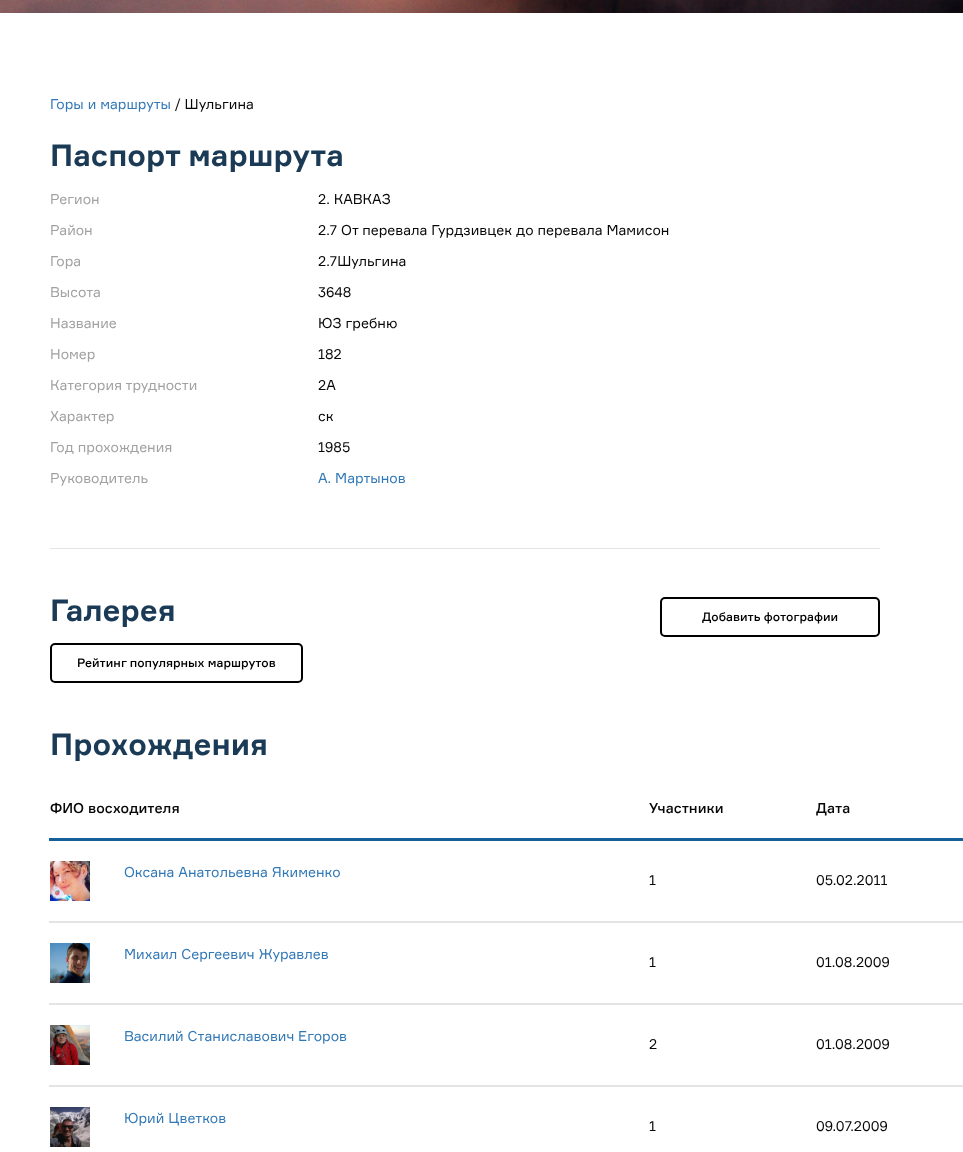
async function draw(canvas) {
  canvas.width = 963;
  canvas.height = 1152;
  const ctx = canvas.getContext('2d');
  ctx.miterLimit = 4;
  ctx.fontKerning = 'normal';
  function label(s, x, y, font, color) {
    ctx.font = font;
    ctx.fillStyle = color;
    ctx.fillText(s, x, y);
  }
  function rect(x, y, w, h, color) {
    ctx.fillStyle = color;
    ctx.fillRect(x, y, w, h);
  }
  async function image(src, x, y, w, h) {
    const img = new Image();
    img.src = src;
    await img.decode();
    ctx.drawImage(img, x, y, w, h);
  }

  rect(0, 0, 963, 1152, '#fff');
  await image('assets/img1.png', 0, 0, 963, 13);
  label('Горы и маршруты', 50, 109, '14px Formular', '#3178b6');
  label('/ Шульгина', 175, 109, '14px Formular', '#070707');
  rect(50, 548, 830, 1, '#e4e4e4');
  label('Паспорт маршрута', 50, 166, 'bold 30px Formular', '#1b3a55');
  label('Регион', 50, 204, '14px Formular', '#a1a1a1');
  label('2. КАВКАЗ', 318, 204, '14px Formular', '#070707');
  label('Район', 50, 235, '14px Formular', '#a1a1a1');
  label('2.7 От перевала Гурдзивцек до перевала Мамисон', 318, 235, '14px Formular', '#070707');
  label('Гора', 50, 266, '14px Formular', '#a1a1a1');
  label('2.7Шульгина', 318, 266, '14px Formular', '#070707');
  label('Высота', 50, 297, '14px Formular', '#a1a1a1');
  label('3648', 318, 297, '14px Formular', '#070707');
  label('Название', 50, 328, '14px Formular', '#a1a1a1');
  label('ЮЗ гребню', 318, 328, '14px Formular', '#070707');
  label('Номер', 50, 359, '14px Formular', '#a1a1a1');
  label('182', 318, 359, '14px Formular', '#070707');
  label('Категория трудности', 50, 390, '14px Formular', '#a1a1a1');
  label('2А', 318, 390, '14px Formular', '#070707');
  label('Характер', 50, 421, '14px Formular', '#a1a1a1');
  label('ск', 318, 421, '14px Formular', '#070707');
  label('Год прохождения', 50, 452, '14px Formular', '#a1a1a1');
  label('1985', 318, 452, '14px Formular', '#070707');
  label('Руководитель', 50, 483, '14px Formular', '#a1a1a1');
  label('А. Мартынов', 318, 483, '14px Formular', '#3178b6');
  label('Галерея', 50, 621, 'bold 30px Formular', '#1b3a55');
  ctx.beginPath();
  ctx.roundRect(661, 598, 218, 38, 4);
  ctx.strokeStyle = '#000';
  ctx.lineWidth = 2;
  ctx.stroke();
  label('Добавить фотографии', 702, 621, '500 12px Formular', '#000');
  ctx.beginPath();
  ctx.roundRect(51, 644, 251, 38, 4);
  ctx.stroke();
  label('Рейтинг популярных маршрутов', 77, 667, '500 12px Formular', '#000');
  label('Прохождения', 50, 755, 'bold 30px Formular', '#1b3a55');
  rect(49, 838, 914, 3, '#156099');
  label('ФИО восходителя', 50, 813, '500 14px Formular', '#070707');
  label('Участники', 649, 813, '500 14px Formular', '#070707');
  label('Дата', 816, 813, '500 14px Formular', '#070707');
  rect(49, 921, 914, 2, '#e4e4e4');
  await image('assets/img2.png', 50, 861, 40, 40);
  label('Оксана Анатольевна Якименко', 124, 877, '14px Formular', '#3178b6');
  label('1', 649, 885, '14px Formular', '#070707');
  label('05.02.2011', 816, 885, '14px Formular', '#070707');
  rect(49, 1003, 914, 2, '#e4e4e4');
  await image('assets/img3.png', 50, 943, 40, 40);
  label('Михаил Сергеевич Журавлев', 124, 959, '14px Formular', '#3178b6');
  label('1', 649, 967, '14px Formular', '#070707');
  label('01.08.2009', 816, 967, '14px Formular', '#070707');
  rect(49, 1085, 914, 2, '#e4e4e4');
  await image('assets/img4.png', 50, 1025, 40, 40);
  label('Василий Станиславович Егоров', 124, 1041, '14px Formular', '#3178b6');
  label('2', 649, 1049, '14px Formular', '#070707');
  label('01.08.2009', 816, 1049, '14px Formular', '#070707');
  await image('assets/img5.png', 50, 1107, 40, 40);
  label('Юрий Цветков', 124, 1123, '14px Formular', '#3178b6');
  label('1', 649, 1131, '14px Formular', '#070707');
  label('09.07.2009', 816, 1131, '14px Formular', '#070707');
}

draw(document.querySelector('canvas'));
